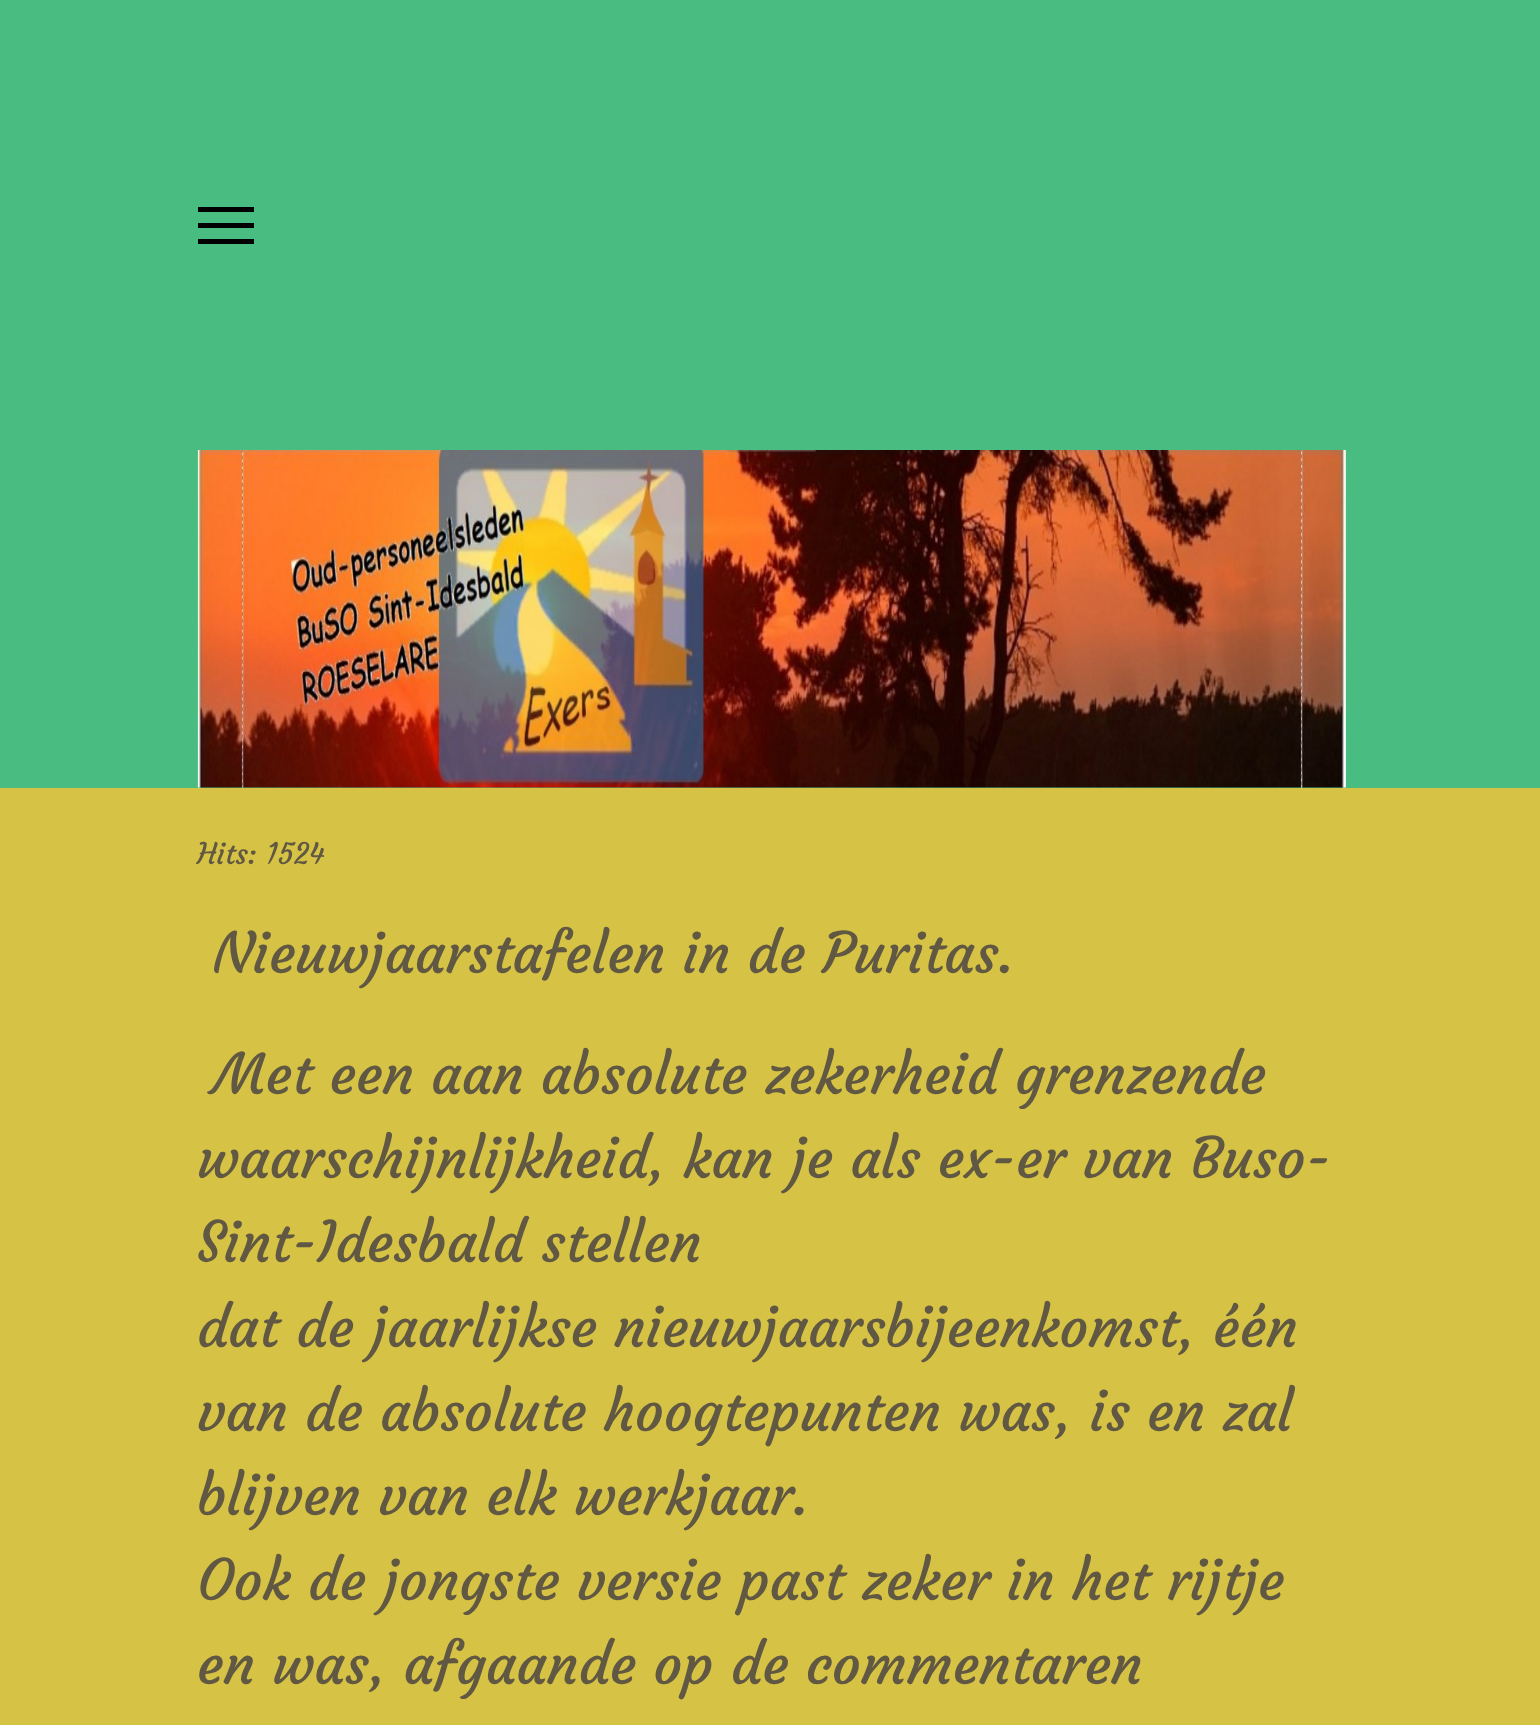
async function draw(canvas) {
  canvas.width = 1540;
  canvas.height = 1725;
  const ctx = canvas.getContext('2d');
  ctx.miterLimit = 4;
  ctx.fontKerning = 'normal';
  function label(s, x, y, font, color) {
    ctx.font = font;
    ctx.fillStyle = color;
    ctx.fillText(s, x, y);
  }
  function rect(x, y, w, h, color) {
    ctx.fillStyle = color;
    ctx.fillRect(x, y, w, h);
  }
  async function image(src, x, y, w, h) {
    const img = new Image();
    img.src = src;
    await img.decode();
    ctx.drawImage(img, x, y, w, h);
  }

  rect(0, 0, 1540, 1725, '#49bd81');
  rect(198, 207, 56, 5, '#000');
  rect(198, 223, 56, 5, '#000');
  rect(198, 239, 56, 5, '#000');
  await image('assets/img1.png', 197, 450, 1149, 338);
  rect(0, 788, 1540, 937, '#d6c345');
  label('Hits: 1524', 197, 864, '29.25px Courgette', '#615843');
  label('Nieuwjaarstafelen in de Puritas.', 213, 973, '56.25px Courgette', '#615843');
  label('Met een aan absolute zekerheid grenzende', 213, 1094, '56.25px Courgette', '#615843');
  label('waarschijnlijkheid, kan je als ex-er van Buso-', 197, 1178, '56.25px Courgette', '#615843');
  label('Sint-Idesbald stellen', 197, 1262, '56.25px Courgette', '#615843');
  label('dat de jaarlijkse nieuwjaarsbijeenkomst, één', 197, 1347, '56.25px Courgette', '#615843');
  label('van de absolute hoogtepunten was, is en zal', 197, 1431, '56.25px Courgette', '#615843');
  label('blijven van elk werkjaar.', 197, 1515, '56.25px Courgette', '#615843');
  label('Ook de jongste versie past zeker in het rijtje', 197, 1600, '56.25px Courgette', '#615843');
  label('en was, afgaande op de commentaren', 197, 1684, '56.25px Courgette', '#615843');
}

draw(document.querySelector('canvas'));
